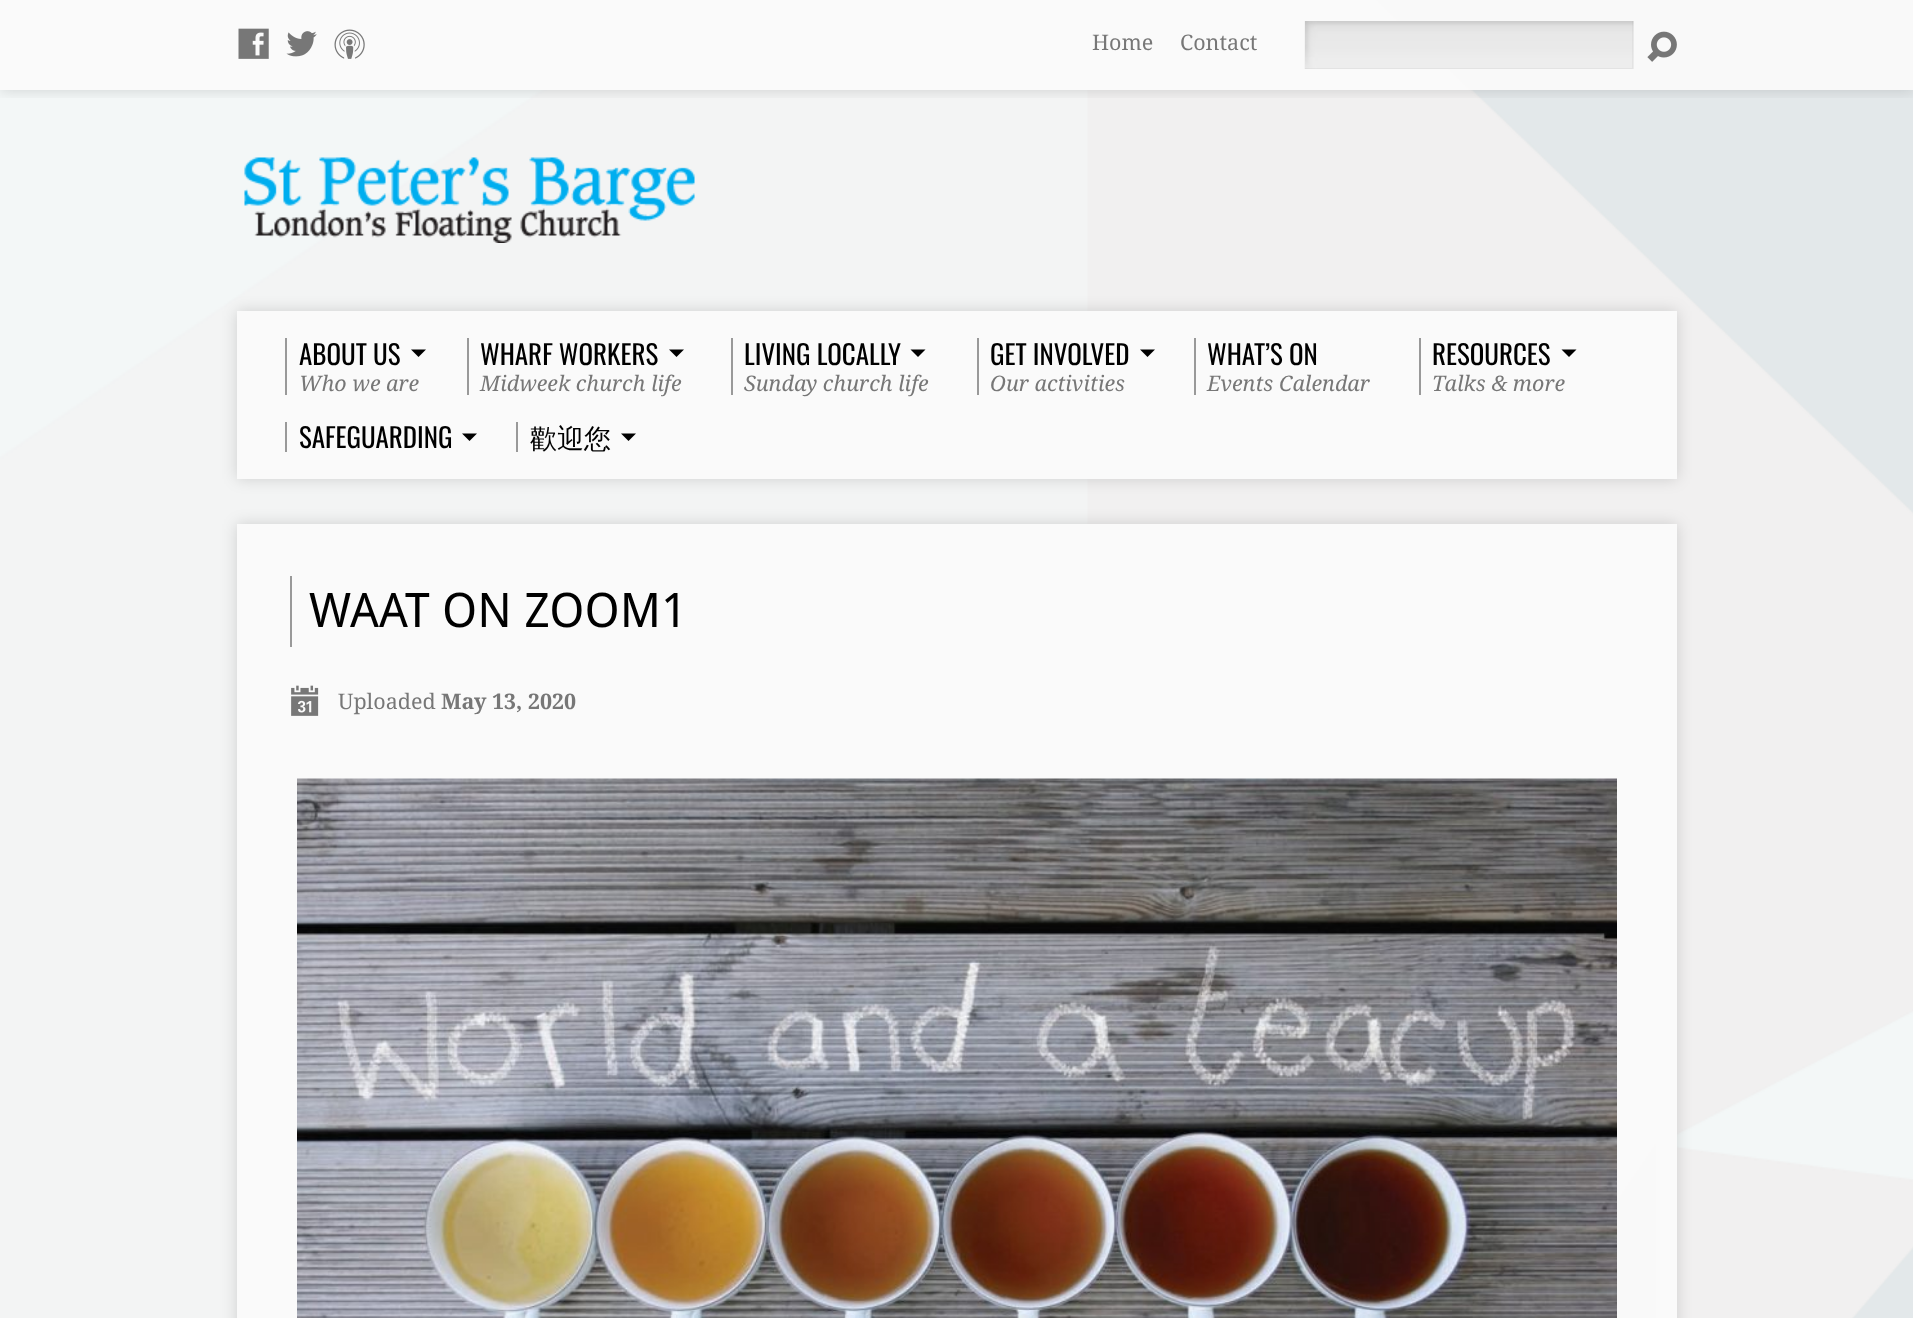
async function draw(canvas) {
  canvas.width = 1913;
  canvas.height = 1318;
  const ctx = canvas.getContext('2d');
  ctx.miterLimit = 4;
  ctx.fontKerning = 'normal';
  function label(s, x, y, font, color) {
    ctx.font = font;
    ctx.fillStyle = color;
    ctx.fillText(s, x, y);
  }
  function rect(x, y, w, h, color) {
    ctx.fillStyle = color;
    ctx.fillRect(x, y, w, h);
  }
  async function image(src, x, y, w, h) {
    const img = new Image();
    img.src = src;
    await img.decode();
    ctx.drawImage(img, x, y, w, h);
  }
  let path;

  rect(0, 0, 1913, 1318, '#fff');
  await image('assets/img1.png', 0, 0, 1913, 1318);
  ctx.save();
  ctx.beginPath();
  ctx.rect(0, 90, 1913, 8);
  ctx.clip();
  ctx.fillStyle = '#00000026';
  ctx.filter = 'blur(7.5px)';
  ctx.beginPath();
  ctx.rect(0, 0, 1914, 90);
  ctx.fill();
  ctx.filter = 'none';
  ctx.restore();
  rect(0, 0, 1913, 90, '#fafafaf0');
  await image('assets/img2.png', 238, 28, 31, 31);
  await image('assets/img3.png', 286, 31, 31, 26);
  await image('assets/img4.png', 334, 29, 31, 30);
  label('Home', 1092, 50, '21.5px Droid Serif', '#777');
  label('Contact', 1180, 50, '21.5px Droid Serif', '#777');
  rect(1304, 21, 330, 48, '#fff');
  await image('assets/img5.png', 1305, 21, 329, 48);
  ctx.fillStyle = '#9696961a';
  path = new Path2D('M1634 21V69L1632 68V21Z');
  ctx.fill(path);
  path = new Path2D('M1634 69H1304L1305 68H1632Z');
  ctx.fill(path);
  path = new Path2D('M1304 69V21H1305V68Z');
  ctx.fill(path);
  await image('assets/img6.png', 1647, 31, 30, 31);
  await image('assets/img7.png', 244, 157, 451, 86);
  ctx.save();
  path = new Path2D('M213 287H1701V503H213ZM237 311H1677V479H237Z');
  ctx.clip(path, 'evenodd');
  ctx.fillStyle = '#00000026';
  ctx.filter = 'blur(7.5px)';
  ctx.beginPath();
  ctx.rect(237, 311, 1440, 168);
  ctx.fill();
  ctx.filter = 'none';
  ctx.restore();
  rect(237, 311, 1440, 168, '#fafafaf0');
  rect(285, 338, 2, 57, '#999');
  label('ABOUT US', 299, 365, '27px Oswald', '#000');
  path = new Path2D('M411 349.5H426L418.5 357Z');
  ctx.fill(path);
  label('Who we are', 299, 391, 'italic 21.5px Droid Serif', '#777');
  rect(467, 338, 2, 57, '#999');
  label('WHARF WORKERS', 480, 365, '27px Oswald', '#000');
  path = new Path2D('M669 349.5H684L676.5 357Z');
  ctx.fill(path);
  label('Midweek church life', 480, 391, 'italic 21.5px Droid Serif', '#777');
  rect(731, 338, 2, 57, '#999');
  label('LIVING LOCALLY', 744, 365, '27px Oswald', '#000');
  path = new Path2D('M910.5 349.5H925.5L918 357Z');
  ctx.fill(path);
  label('Sunday church life', 744, 391, 'italic 21.5px Droid Serif', '#777');
  rect(977, 338, 2, 57, '#999');
  label('GET INVOLVED', 990, 365, '27px Oswald', '#000');
  path = new Path2D('M1140 349.5H1155L1147.5 357Z');
  ctx.fill(path);
  label('Our activities', 990, 391, 'italic 21.5px Droid Serif', '#777');
  rect(1194, 338, 2, 57, '#999');
  label('WHAT’S ON', 1207, 365, '27px Oswald', '#000');
  label('Events Calendar', 1207, 391, 'italic 21.5px Droid Serif', '#777');
  rect(1419, 338, 2, 57, '#999');
  label('RESOURCES', 1432, 365, '27px Oswald', '#000');
  path = new Path2D('M1561.5 349.5H1576.5L1569 357Z');
  ctx.fill(path);
  label('Talks & more', 1432, 391, 'italic 21.5px Droid Serif', '#777');
  rect(285, 422, 2, 30, '#999');
  label('SAFEGUARDING', 299, 448, '27px Oswald', '#000');
  path = new Path2D('M462 433.5H477L469.5 441Z');
  ctx.fill(path);
  rect(516, 422, 2, 30, '#999');
  label('歡迎您', 530, 448, '500 27px WenQuanYi Zen Hei', '#000');
  path = new Path2D('M621 433.5H636L628.5 441Z');
  ctx.fill(path);
  ctx.save();
  path = new Path2D('M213 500H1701V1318H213ZM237 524H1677V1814H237Z');
  ctx.clip(path, 'evenodd');
  ctx.fillStyle = '#00000026';
  ctx.filter = 'blur(7.5px)';
  ctx.beginPath();
  ctx.rect(237, 524, 1440, 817);
  ctx.fill();
  ctx.filter = 'none';
  ctx.restore();
  rect(237, 524, 1440, 794, '#fafafaf0');
  rect(290, 576, 2, 71, '#999');
  label('WAAT ON ZOOM1', 309, 627, '47.5px Droid Sans', '#000');
  await image('assets/img8.png', 291, 685, 28, 31);
  label('Uploaded', 338, 709, '21.5px Droid Serif', '#777');
  label('May 13, 2020', 441, 709, 'bold 21.5px Droid Serif', '#777');
  await image('assets/img9.png', 297, 778, 1320, 540);
}

draw(document.querySelector('canvas'));
